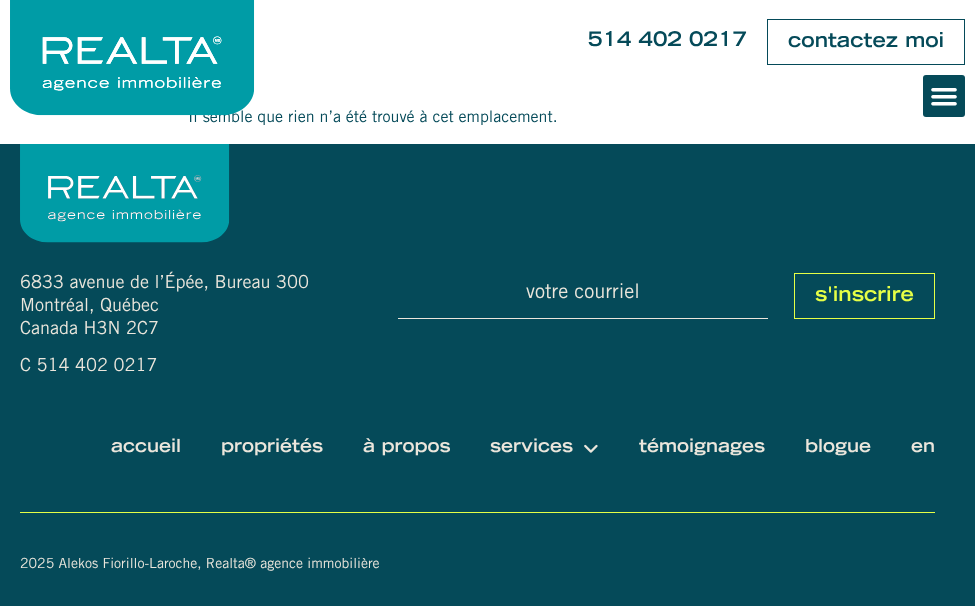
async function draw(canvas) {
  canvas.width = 975;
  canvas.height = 606;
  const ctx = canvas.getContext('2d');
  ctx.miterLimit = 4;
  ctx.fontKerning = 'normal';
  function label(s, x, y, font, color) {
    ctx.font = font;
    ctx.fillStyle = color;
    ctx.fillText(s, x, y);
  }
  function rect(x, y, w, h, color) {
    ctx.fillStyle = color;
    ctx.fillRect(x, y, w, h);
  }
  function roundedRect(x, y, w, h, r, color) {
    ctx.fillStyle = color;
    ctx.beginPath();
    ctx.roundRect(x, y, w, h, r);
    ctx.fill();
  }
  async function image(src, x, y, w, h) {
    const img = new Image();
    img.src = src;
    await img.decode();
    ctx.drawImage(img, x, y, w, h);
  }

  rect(0, 0, 975, 606, '#fff');
  label('Il semble que rien n’a été trouvé à cet emplacement.', 188, 122, '16px Trade Gothic', '#054a59');
  await image('assets/img1.png', 10, 0, 245, 116);
  label('514 402 0217', 588, 46, 'bold 20px Trade Gothic', '#054a59');
  ctx.strokeStyle = '#054a59';
  ctx.strokeRect(767.5, 19.5, 197, 45);
  label('contactez moi', 788, 47, 'bold 20px Trade Gothic', '#054a59');
  roundedRect(923, 75, 42, 42, 3, '#054a59');
  await image('assets/img2.png', 931, 88, 26, 18);
  rect(0, 144, 975, 462, '#054a59');
  await image('assets/img3.png', 20, 144, 210, 99);
  label('6833 avenue de l’Épée, Bureau 300', 20, 288, '18px Trade Gothic', '#ebe6dc');
  label('Montréal, Québec', 20, 311, '18px Trade Gothic', '#ebe6dc');
  label('Canada H3N 2C7', 20, 334, '18px Trade Gothic', '#ebe6dc');
  label('C 514 402 0217', 20, 371, '18px Trade Gothic', '#ebe6dc');
  rect(398, 318, 370, 1, '#ebe6dc');
  label('votre courriel', 526, 298, '20px Trade Gothic', '#ebe6dc');
  ctx.strokeStyle = '#e6ff46';
  ctx.strokeRect(794.5, 273.5, 140, 45);
  label('s\'inscrire', 815, 301, 'bold 20px Trade Gothic', '#e6ff46');
  label('accueil', 111, 452, 'bold 18px Trade Gothic', '#ebe6dc');
  label('propriétés', 221, 452, 'bold 18px Trade Gothic', '#ebe6dc');
  label('à propos', 363, 452, 'bold 18px Trade Gothic', '#ebe6dc');
  label('services', 490, 452, 'bold 18px Trade Gothic', '#ebe6dc');
  await image('assets/img4.png', 584, 444, 14, 9);
  label('témoignages', 639, 452, 'bold 18px Trade Gothic', '#ebe6dc');
  label('blogue', 805, 452, 'bold 18px Trade Gothic', '#ebe6dc');
  label('en', 911, 452, 'bold 18px Trade Gothic', '#ebe6dc');
  rect(20, 512, 915, 1, '#e6ff46');
  label('2025 Alekos Fiorillo-Laroche, Realta® agence immobilière', 20, 568, '14px Trade Gothic', '#ebe6dc');
}

draw(document.querySelector('canvas'));
